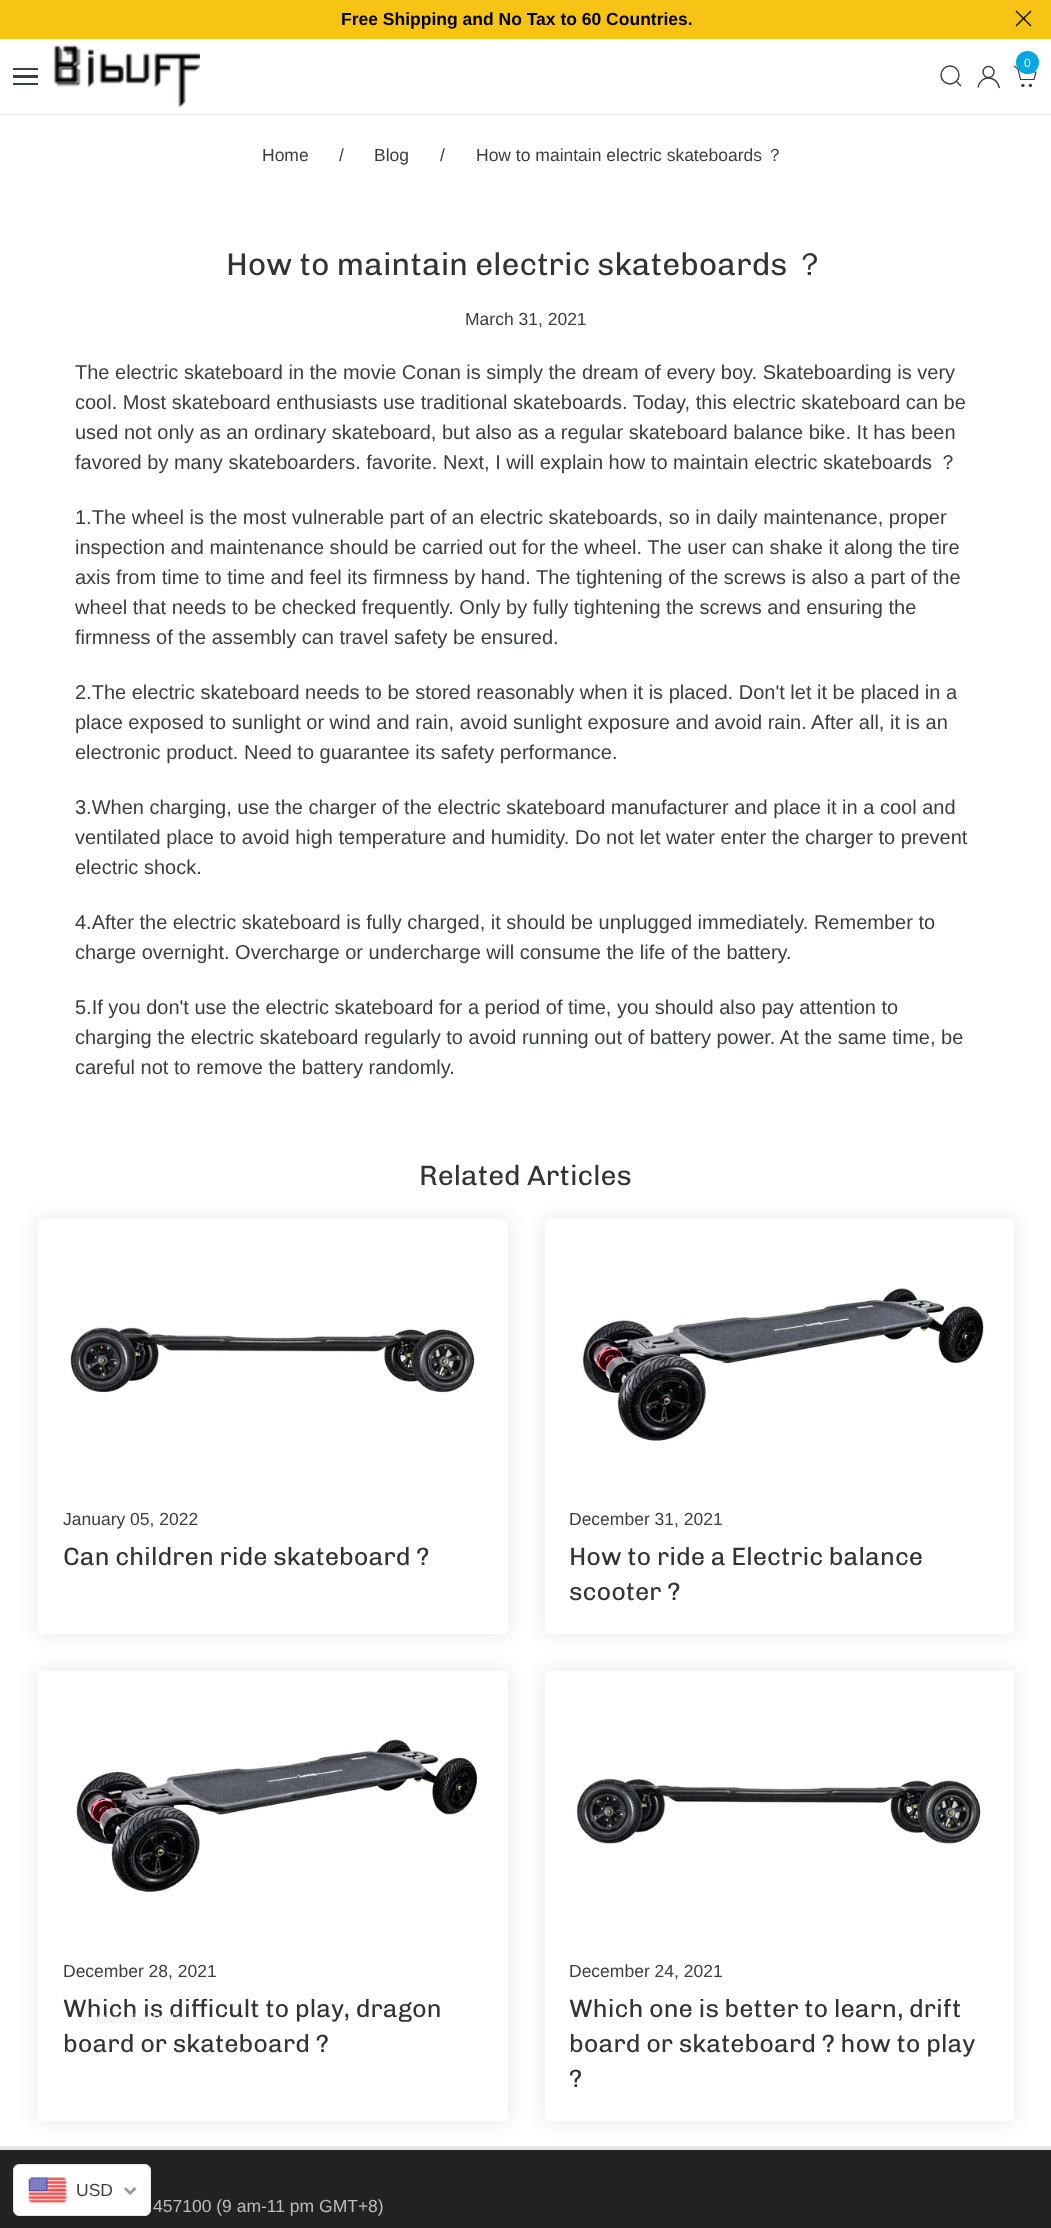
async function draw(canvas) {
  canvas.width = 1051;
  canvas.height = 2228;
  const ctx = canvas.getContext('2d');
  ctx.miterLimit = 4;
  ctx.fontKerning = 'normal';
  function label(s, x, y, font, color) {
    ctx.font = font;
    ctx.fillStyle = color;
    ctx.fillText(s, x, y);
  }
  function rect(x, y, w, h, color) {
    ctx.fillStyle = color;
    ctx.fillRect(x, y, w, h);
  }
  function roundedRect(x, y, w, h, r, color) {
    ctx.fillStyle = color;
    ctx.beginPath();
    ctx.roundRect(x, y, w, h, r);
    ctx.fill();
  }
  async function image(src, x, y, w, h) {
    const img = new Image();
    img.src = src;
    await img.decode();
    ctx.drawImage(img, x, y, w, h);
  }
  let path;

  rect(0, 0, 1051, 2228, '#fff');
  rect(0, 0, 1051, 39, '#f7c415');
  label('Free Shipping and No Tax to 60 Countries.', 341, 25, 'bold 17.5px Liberation Sans', '#000');
  path = new Path2D('M1016 11L1031 26M1031 11L1016 26');
  ctx.strokeStyle = '#000';
  ctx.lineWidth = 1.4;
  ctx.stroke(path);
  rect(0, 114, 1051, 1, '#e5e5e5');
  rect(13, 75, 25, 3, '#393e41');
  rect(13, 68, 25, 2, '#393e41');
  rect(13, 83, 25, 2, '#393e41');
  await image('assets/img1.png', 53, 45, 147, 63);
  path = new Path2D('M1014 66L1018 69L1020.5 79.5H1034L1036 72H1024');
  ctx.strokeStyle = '#393e41';
  ctx.lineWidth = 1.2;
  ctx.stroke(path);
  ctx.fillStyle = '#00a7e1';
  ctx.beginPath();
  ctx.arc(1027.5, 62.5, 11.5, 0, 2 * Math.PI);
  ctx.fill();
  label('0', 1024, 67, '12px Liberation Sans', '#fff');
  ctx.fillStyle = '#393e41';
  ctx.beginPath();
  ctx.arc(1022.9, 85.4, 1.7, 0, 2 * Math.PI);
  ctx.fill();
  ctx.beginPath();
  ctx.arc(1030.4, 85.4, 1.7, 0, 2 * Math.PI);
  ctx.fill();
  ctx.beginPath();
  ctx.arc(950, 75, 9, 0, 2 * Math.PI);
  ctx.lineWidth = 1.4;
  ctx.stroke();
  path = new Path2D('M956 81L961 86Z');
  ctx.stroke(path);
  ctx.beginPath();
  ctx.arc(988.5, 72, 5.5, 0, 2 * Math.PI);
  ctx.stroke();
  path = new Path2D('M978 87.5C980.5 74.5 997 75 999.5 88');
  ctx.stroke(path);
  label('Home', 262, 161, '17.5px Liberation Sans', '#393e41');
  label('/', 339, 161, '17.5px Liberation Sans', '#393e41');
  label('Blog', 374, 161, '17.5px Liberation Sans', '#393e41');
  label('/', 440, 161, '17.5px Liberation Sans', '#393e41');
  label('How to maintain electric skateboards', 476, 161, '17.5px Liberation Sans', '#393e41');
  label('？', 766, 161, '500 17.5px WenQuanYi Zen Hei', '#393e41');
  label('How to maintain electric skateboards', 226, 275, '31.5px Chivo', '#333');
  label('？', 794, 275, '500 31.5px WenQuanYi Zen Hei', '#333');
  label('March 31, 2021', 465, 325, '17.5px Liberation Sans', '#393e41');
  label('The electric skateboard in the movie Conan is simply the dream of every boy. Skateboarding is very', 75, 379, '20px Liberation Sans', '#393e41');
  label('cool. Most skateboard enthusiasts use traditional skateboards. Today, this electric skateboard can be', 75, 409, '20px Liberation Sans', '#393e41');
  label('used not only as an ordinary skateboard, but also as a regular skateboard balance bike. It has been', 75, 439, '20px Liberation Sans', '#393e41');
  label('favored by many skateboarders. favorite. Next, I will explain how to maintain electric skateboards', 75, 469, '20px Liberation Sans', '#393e41');
  label('？', 938, 469, '500 20px WenQuanYi Zen Hei', '#393e41');
  label('1.The wheel is the most vulnerable part of an electric skateboards, so in daily maintenance, proper', 75, 524, '20px Liberation Sans', '#393e41');
  label('inspection and maintenance should be carried out for the wheel. The user can shake it along the tire', 75, 554, '20px Liberation Sans', '#393e41');
  label('axis from time to time and feel its firmness by hand. The tightening of the screws is also a part of the', 75, 584, '20px Liberation Sans', '#393e41');
  label('wheel that needs to be checked frequently. Only by fully tightening the screws and ensuring the', 75, 614, '20px Liberation Sans', '#393e41');
  label('firmness of the assembly can travel safety be ensured.', 75, 644, '20px Liberation Sans', '#393e41');
  label('2.The electric skateboard needs to be stored reasonably when it is placed. Don\'t let it be placed in a', 75, 699, '20px Liberation Sans', '#393e41');
  label('place exposed to sunlight or wind and rain, avoid sunlight exposure and avoid rain. After all, it is an', 75, 729, '20px Liberation Sans', '#393e41');
  label('electronic product. Need to guarantee its safety performance.', 75, 759, '20px Liberation Sans', '#393e41');
  label('3.When charging, use the charger of the electric skateboard manufacturer and place it in a cool and', 75, 814, '20px Liberation Sans', '#393e41');
  label('ventilated place to avoid high temperature and humidity. Do not let water enter the charger to prevent', 75, 844, '20px Liberation Sans', '#393e41');
  label('electric shock.', 75, 874, '20px Liberation Sans', '#393e41');
  label('4.After the electric skateboard is fully charged, it should be unplugged immediately. Remember to', 75, 929, '20px Liberation Sans', '#393e41');
  label('charge overnight. Overcharge or undercharge will consume the life of the battery.', 75, 959, '20px Liberation Sans', '#393e41');
  label('5.If you don\'t use the electric skateboard for a period of time, you should also pay attention to', 75, 1014, '20px Liberation Sans', '#393e41');
  label('charging the electric skateboard regularly to avoid running out of battery power. At the same time, be', 75, 1044, '20px Liberation Sans', '#393e41');
  label('careful not to remove the battery randomly.', 75, 1074, '20px Liberation Sans', '#393e41');
  label('Related Articles', 419, 1185, '28px Chivo', '#333');
  ctx.fillStyle = '#0000001a';
  ctx.filter = 'blur(9.5px)';
  ctx.beginPath();
  ctx.roundRect(38, 1219, 470, 415, 5);
  ctx.fill();
  ctx.filter = 'none';
  roundedRect(38, 1219, 470, 415, 5, '#fff');
  await image('assets/img2.png', 69, 1326, 407, 67);
  label('January 05, 2022', 63, 1525, '17.5px Liberation Sans', '#393e41');
  label('Can children ride skateboard ?', 63, 1565, '25px Chivo', '#333');
  ctx.fillStyle = '#0000001a';
  ctx.filter = 'blur(9.5px)';
  ctx.beginPath();
  ctx.roundRect(545, 1219, 469, 415, 5);
  ctx.fill();
  ctx.filter = 'none';
  roundedRect(545, 1219, 469, 415, 5, '#fff');
  await image('assets/img3.png', 582, 1288, 403, 153);
  label('December 31, 2021', 569, 1525, '17.5px Liberation Sans', '#393e41');
  label('How to ride a Electric balance', 569, 1565, '25px Chivo', '#333');
  label('scooter ?', 569, 1600, '25px Chivo', '#333');
  rect(0, 2146, 1051, 4, '#e5e5e5');
  rect(0, 2150, 1051, 78, '#222');
  ctx.fillStyle = '#0000001a';
  ctx.filter = 'blur(9.5px)';
  ctx.beginPath();
  ctx.roundRect(38, 1671, 470, 450, 5);
  ctx.fill();
  ctx.filter = 'none';
  roundedRect(38, 1671, 470, 450, 5, '#fff');
  await image('assets/img4.png', 75, 1739, 404, 153);
  label('December 28, 2021', 63, 1977, '17.5px Liberation Sans', '#393e41');
  label('Which is difficult to play, dragon', 63, 2017, '25px Chivo', '#333');
  label('board or skateboard ?', 63, 2052, '25px Chivo', '#333');
  ctx.fillStyle = '#0000001a';
  ctx.filter = 'blur(9.5px)';
  ctx.beginPath();
  ctx.roundRect(545, 1671, 469, 450, 5);
  ctx.fill();
  ctx.filter = 'none';
  roundedRect(545, 1671, 469, 450, 5, '#fff');
  await image('assets/img5.png', 575, 1778, 407, 67);
  label('December 24, 2021', 569, 1977, '17.5px Liberation Sans', '#393e41');
  label('Which one is better to learn, drift', 569, 2017, '25px Chivo', '#333');
  label('board or skateboard ? how to play', 569, 2052, '25px Chivo', '#333');
  label('?', 569, 2087, '25px Chivo', '#333');
  ctx.fillStyle = '#fff';
  ctx.beginPath();
  ctx.roundRect(13.5, 2164.5, 137, 51, 5.5);
  ctx.fill();
  ctx.strokeStyle = '#e8e8e8';
  ctx.lineWidth = 1;
  ctx.stroke();
  label('Canadian Dollar', 97, 2023, '12.25px Liberation Sans', '#ededed');
  await image('assets/img6.png', 28, 2177, 39, 26);
  label('USD', 76, 2196, '17.5px Liberation Sans', '#403f3f');
  ctx.fillStyle = '#999';
  path = new Path2D('M134.5 2187L136.5 2189L130 2195L128.5 2193Z');
  ctx.fill(path);
  path = new Path2D('M125.5 2187L132 2193L130 2195L124 2189Z');
  ctx.fill(path);
  label('457100 (9 am-11 pm GMT+8)', 153, 2212, '17.5px Liberation Sans', '#bdbdbd');
}

draw(document.querySelector('canvas'));
